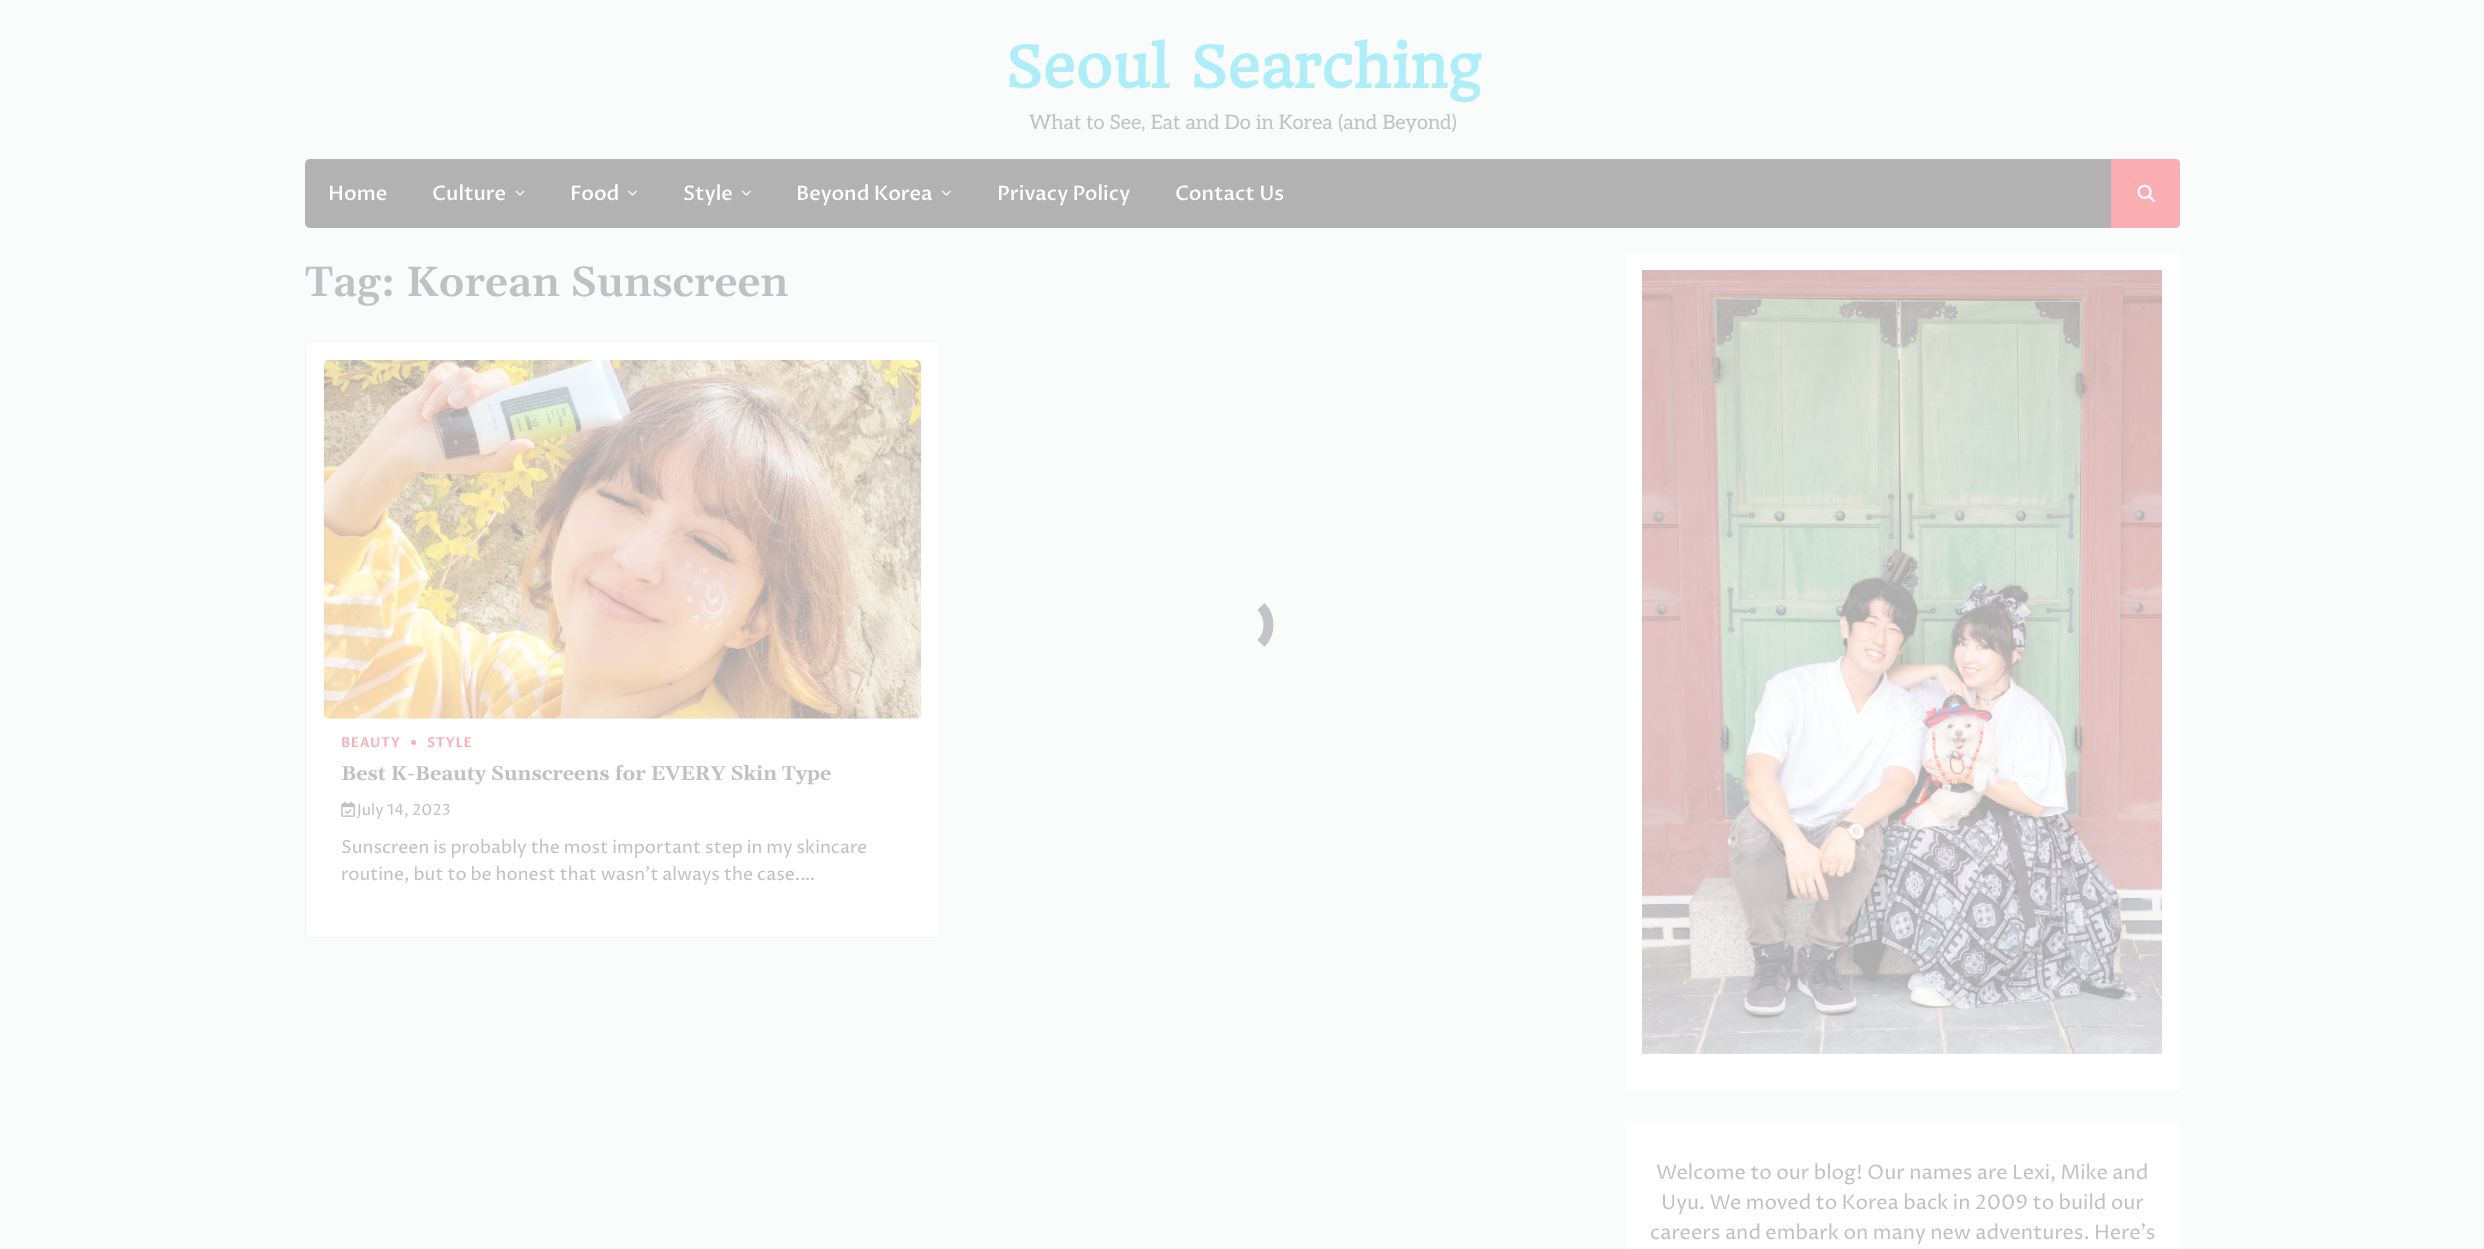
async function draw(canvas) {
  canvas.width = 2484;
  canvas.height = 1249;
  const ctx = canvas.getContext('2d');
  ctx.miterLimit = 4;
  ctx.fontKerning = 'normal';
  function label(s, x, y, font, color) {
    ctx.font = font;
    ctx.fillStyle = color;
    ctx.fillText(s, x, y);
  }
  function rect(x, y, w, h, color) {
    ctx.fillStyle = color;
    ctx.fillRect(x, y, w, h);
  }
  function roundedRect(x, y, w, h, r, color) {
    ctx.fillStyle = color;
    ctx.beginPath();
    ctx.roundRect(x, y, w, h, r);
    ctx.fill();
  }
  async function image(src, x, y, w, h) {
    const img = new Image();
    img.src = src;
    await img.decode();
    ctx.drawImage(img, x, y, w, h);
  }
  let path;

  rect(0, 0, 2484, 1249, '#fafbfb');
  label('Seoul Searching', 1005, 88, 'bold 56.25px HeadlandOne', '#adeef8');
  label('What to See, Eat and Do in Korea (and Beyond)', 1029, 129, '20px Aleo', '#c0c1c4');
  roundedRect(305, 159, 1875, 69, 5, '#b3b2b2');
  label('Home', 328, 200, '500 20px Proza Libre', '#fff');
  label('Culture', 432, 200, '500 20px Proza Libre', '#fff');
  await image('assets/img1.png', 515, 190, 10, 6);
  label('Food', 570, 200, '500 20px Proza Libre', '#fff');
  await image('assets/img2.png', 628, 190, 9, 6);
  label('Style', 683, 200, '500 20px Proza Libre', '#fff');
  await image('assets/img3.png', 741, 190, 10, 6);
  label('Beyond Korea', 796, 200, '500 20px Proza Libre', '#fff');
  await image('assets/img3.png', 941, 190, 10, 6);
  label('Privacy Policy', 997, 200, '500 20px Proza Libre', '#fff');
  label('Contact Us', 1175, 200, '500 20px Proza Libre', '#fff');
  ctx.fillStyle = '#fbadb4';
  ctx.beginPath();
  ctx.roundRect(2111, 159, 69, 69, [0, 5, 5, 0]);
  ctx.fill();
  await image('assets/img4.png', 2137, 184, 18, 19);
  label('Tag: Korean Sunscreen', 305, 296, '600 42.25px Gelasio', '#c0c1c4');
  ctx.fillStyle = '#fff';
  ctx.beginPath();
  ctx.roundRect(305.5, 341.5, 634, 596, 4.5);
  ctx.fill();
  ctx.strokeStyle = '#f5f5f5';
  ctx.stroke();
  await image('assets/img5.png', 323, 360, 599, 359);
  ctx.letterSpacing = '0.5px';
  label('BEAUTY', 341, 747, '600 13.75px Proza Libre', '#fbadb4');
  ctx.beginPath();
  ctx.arc(413.5, 742.5, 2.5, 0, 2 * Math.PI);
  ctx.fill();
  label('STYLE', 427, 747, '600 13.75px Proza Libre', '#fbadb4');
  ctx.letterSpacing = '0px';
  label('Best K-Beauty Sunscreens for EVERY Skin Type', 341, 780, 'bold 20px Gelasio', '#c0c1c4');
  await image('assets/img6.png', 341, 801, 14, 16);
  label('July 14, 2023', 357, 815, '15.5px Proza Libre', '#c0c1c4');
  label('Sunscreen is probably the most important step in my skincare', 341, 853, '17.8px Proza Libre', '#c0c1c4');
  label('routine, but to be honest that wasn’t always the case.…', 341, 880, '17.8px Proza Libre', '#c0c1c4');
  roundedRect(1625, 253, 555, 838, 5, '#fff');
  await image('assets/img7.png', 1642, 270, 520, 784);
  roundedRect(1625, 1121, 555, 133, 5, '#fff');
  label('Welcome to our blog! Our names are Lexi, Mike and', 1656, 1179, '20px Proza Libre', '#c0c1c4');
  label('Uyu. We moved to Korea back in 2009 to build our', 1661, 1209, '20px Proza Libre', '#c0c1c4');
  label('careers and embark on many new adventures. Here\'s', 1650, 1239, '20px Proza Libre', '#c0c1c4');
  path = new Path2D('M1261 606.5C1271 616.5 1271 633.5 1261 643.5M1261 606.5C1271 616.5 1271 633.5 1261 643.5M1261 606.5C1271 616.5 1271 633.5 1261 643.5');
  ctx.strokeStyle = '#c2c4c8';
  ctx.lineWidth = 10;
  ctx.stroke(path);
}

draw(document.querySelector('canvas'));
